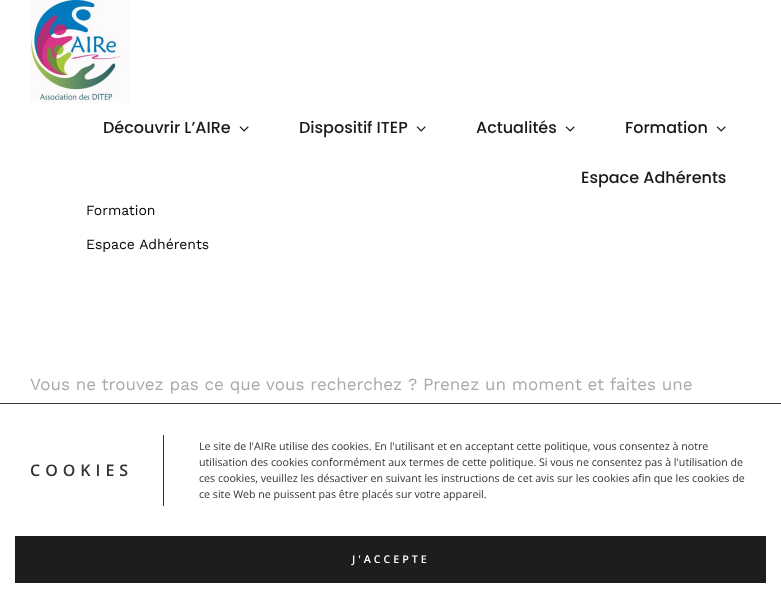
async function draw(canvas) {
  canvas.width = 781;
  canvas.height = 593;
  const ctx = canvas.getContext('2d');
  ctx.miterLimit = 4;
  ctx.fontKerning = 'normal';
  function label(s, x, y, font, color) {
    ctx.font = font;
    ctx.fillStyle = color;
    ctx.fillText(s, x, y);
  }
  function rect(x, y, w, h, color) {
    ctx.fillStyle = color;
    ctx.fillRect(x, y, w, h);
  }
  async function image(src, x, y, w, h) {
    const img = new Image();
    img.src = src;
    await img.decode();
    ctx.drawImage(img, x, y, w, h);
  }

  rect(0, 0, 781, 593, '#fff');
  await image('assets/img1.png', 30, 0, 100, 103);
  label('Découvrir L’AIRe', 103, 133, '500 16px Poppins', '#1a191c');
  await image('assets/img2.png', 239, 126, 10, 6);
  label('Dispositif ITEP', 299, 133, '500 16px Poppins', '#1a191c');
  await image('assets/img2.png', 416, 126, 10, 6);
  label('Actualités', 476, 133, '500 16px Poppins', '#1a191c');
  await image('assets/img2.png', 565, 126, 10, 6);
  label('Formation', 625, 133, '500 16px Poppins', '#1a191c');
  await image('assets/img2.png', 716, 126, 10, 6);
  label('Espace Adhérents', 581, 183, '500 16px Poppins', '#1a191c');
  label('Formation', 86, 215, '14px Work Sans', '#000');
  label('Espace Adhérents', 86, 249, '14px Work Sans', '#000');
  label('Vous ne trouvez pas ce que vous recherchez ? Prenez un moment et faites une', 30, 390, '17px Work Sans', '#aaa9a9');
  rect(0, 403, 781, 1, '#3b3939');
  rect(163, 435, 1, 71, '#333');
  ctx.letterSpacing = '5px';
  label('COOKIES', 30, 476, '600 16px Open Sans', '#333');
  ctx.letterSpacing = '0px';
  label('Le site de l\'AIRe utilise des cookies. En l\'utilisant et en acceptant cette politique, vous consentez à notre', 199, 450, '10.67px Open Sans', '#333');
  label('utilisation des cookies conformément aux termes de cette politique. Si vous ne consentez pas à l\'utilisation de', 199, 466, '10.67px Open Sans', '#333');
  label('ces cookies, veuillez les désactiver en suivant les instructions de cet avis sur les cookies afin que les cookies de', 199, 482, '10.67px Open Sans', '#333');
  label('ce site Web ne puissent pas être placés sur votre appareil.', 199, 498, '10.67px Open Sans', '#333');
  rect(15, 536, 751, 47, '#1d1d1d');
  ctx.letterSpacing = '3px';
  label('J\'ACCEPTE', 352, 563, '600 10.67px Open Sans', '#fff');
}

draw(document.querySelector('canvas'));
